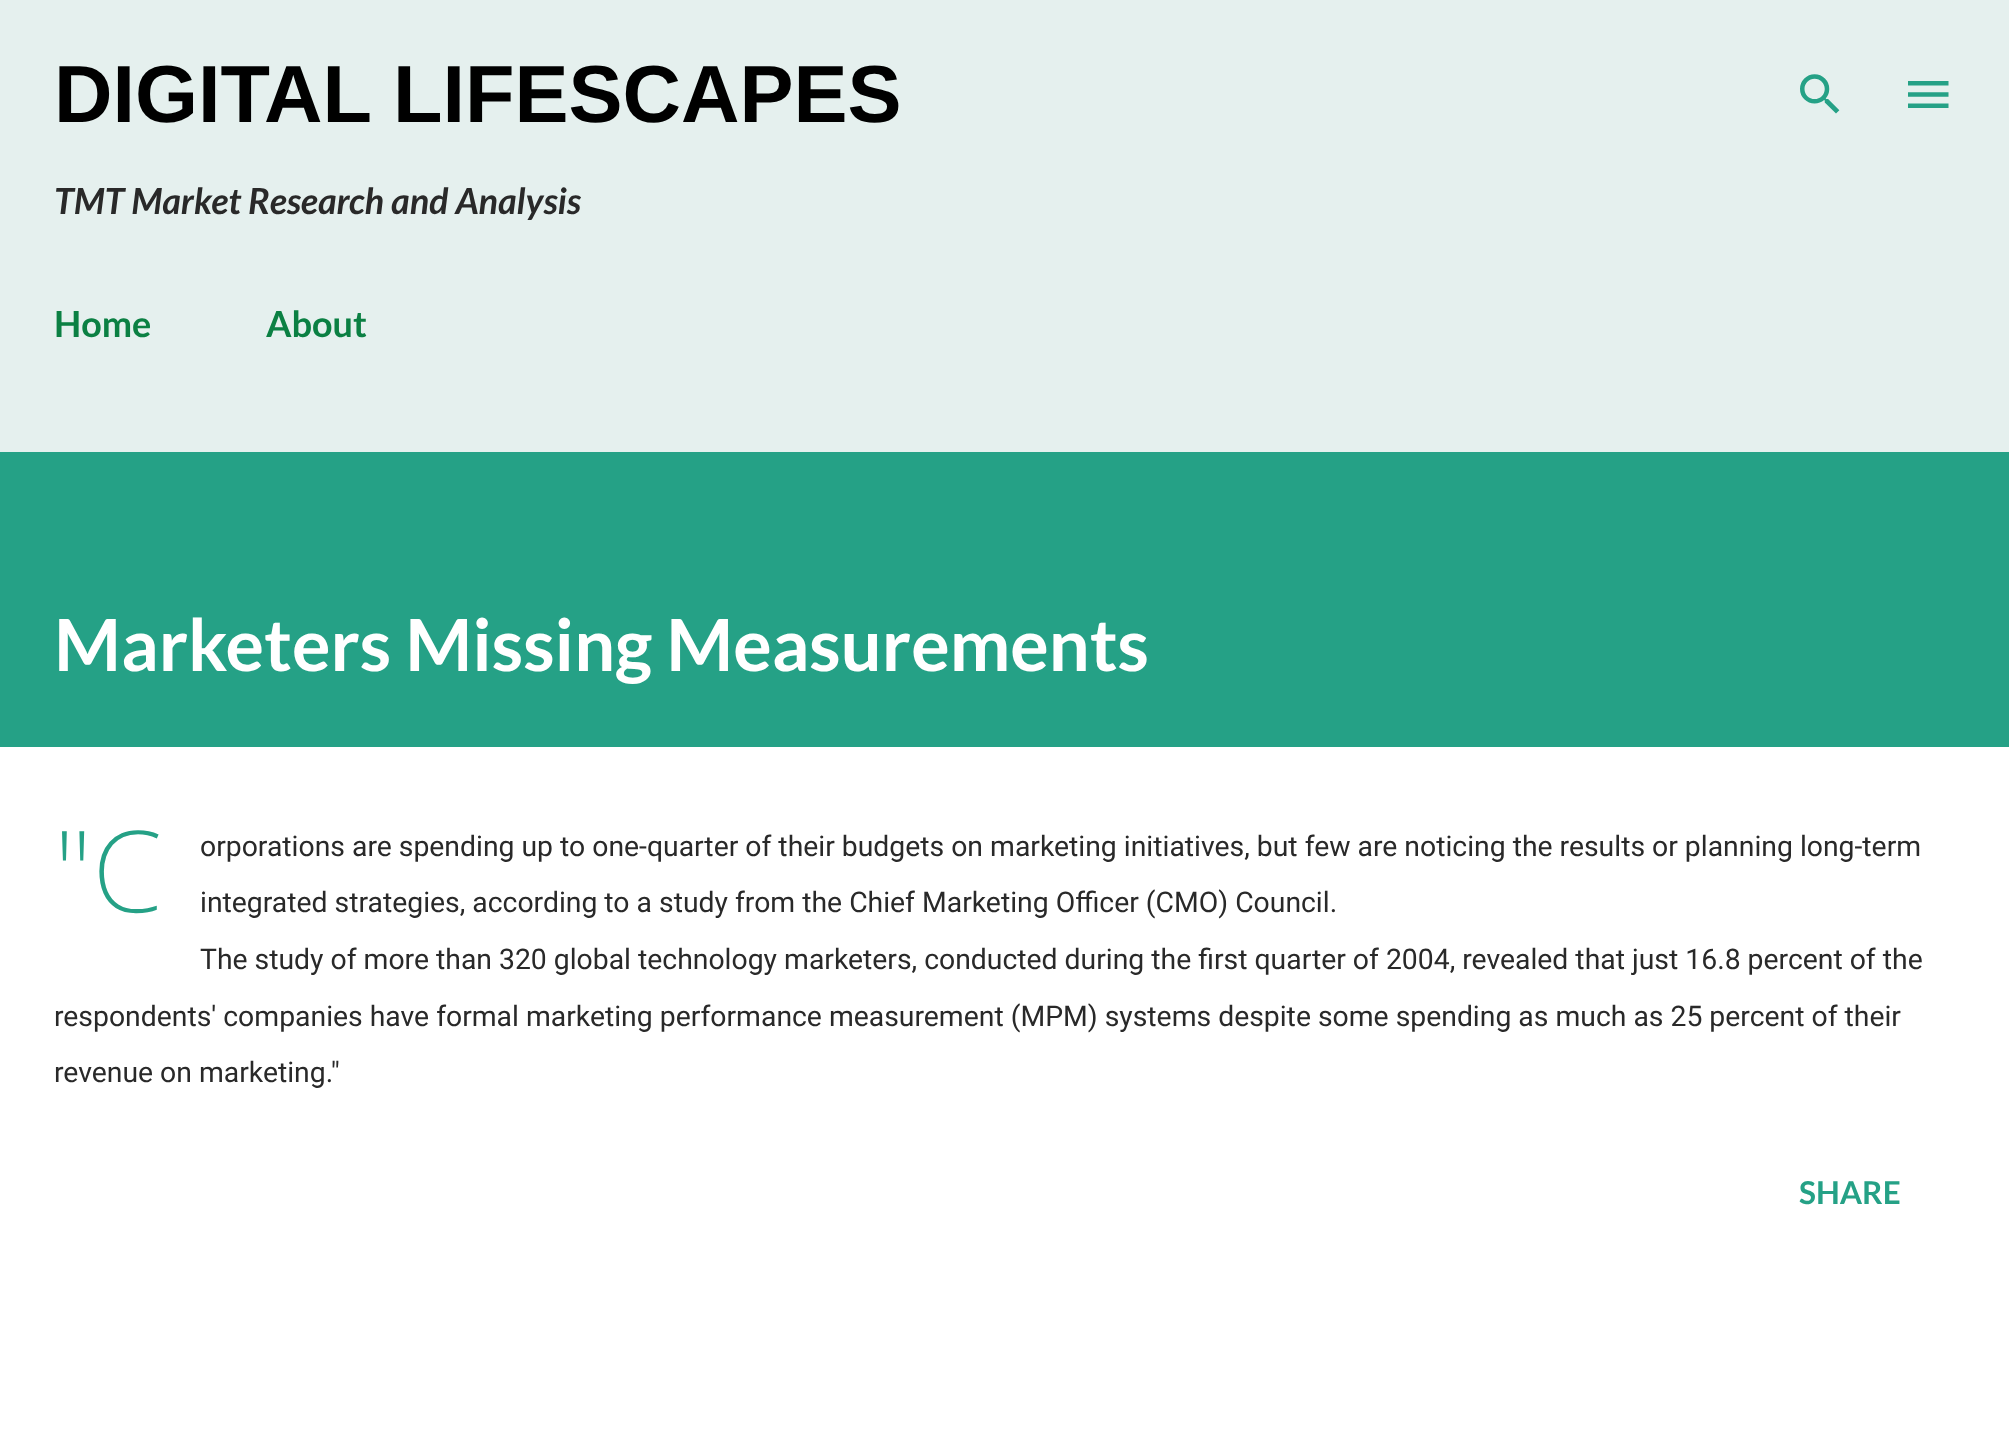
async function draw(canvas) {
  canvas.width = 2009;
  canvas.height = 1432;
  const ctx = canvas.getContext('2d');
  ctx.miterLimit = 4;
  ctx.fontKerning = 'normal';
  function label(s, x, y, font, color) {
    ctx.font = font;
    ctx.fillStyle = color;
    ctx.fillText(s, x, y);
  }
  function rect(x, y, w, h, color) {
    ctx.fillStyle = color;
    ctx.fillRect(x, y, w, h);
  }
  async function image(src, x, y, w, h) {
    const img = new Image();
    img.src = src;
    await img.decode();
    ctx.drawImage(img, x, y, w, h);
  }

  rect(0, 0, 2009, 1432, '#fff');
  rect(0, 0, 2009, 452, '#e5f0ee');
  label('DIGITAL LIFESCAPES', 54, 122, 'bold 81px Liberation Sans', '#000');
  label('TMT Market Research and Analysis', 54, 214, 'italic bold 36px Lato', '#292929');
  await image('assets/img1.png', 1800, 74, 40, 40);
  await image('assets/img2.png', 1908, 81, 41, 27);
  label('Home', 54, 337, 'bold 36px Lato', '#0b8043');
  label('About', 266, 337, 'bold 36px Lato', '#0b8043');
  rect(0, 452, 2009, 295, '#25a186');
  label('Marketers Missing Measurements', 54, 671, 'bold 72px Lato', '#fff');
  label('"C', 54, 912, '200 113px Noto Sans', '#25a186');
  label('orporations are spending up to one-quarter of their budgets on marketing initiatives, but few are noticing the results or planning long-term', 200, 856, '28.35px Roboto', '#292929');
  label('integrated strategies, according to a study from the Chief Marketing Officer (CMO) Council.', 200, 912, '28.35px Roboto', '#292929');
  label('The study of more than 320 global technology marketers, conducted during the first quarter of 2004, revealed that just 16.8 percent of the', 200, 969, '28.35px Roboto', '#292929');
  label('respondents\' companies have formal marketing performance measurement (MPM) systems despite some spending as much as 25 percent of their', 54, 1026, '28.35px Roboto', '#292929');
  label('revenue on marketing."', 54, 1082, '28.35px Roboto', '#292929');
  label('SHARE', 1799, 1204, 'bold 31.5px Lato', '#25a186');
}

draw(document.querySelector('canvas'));
